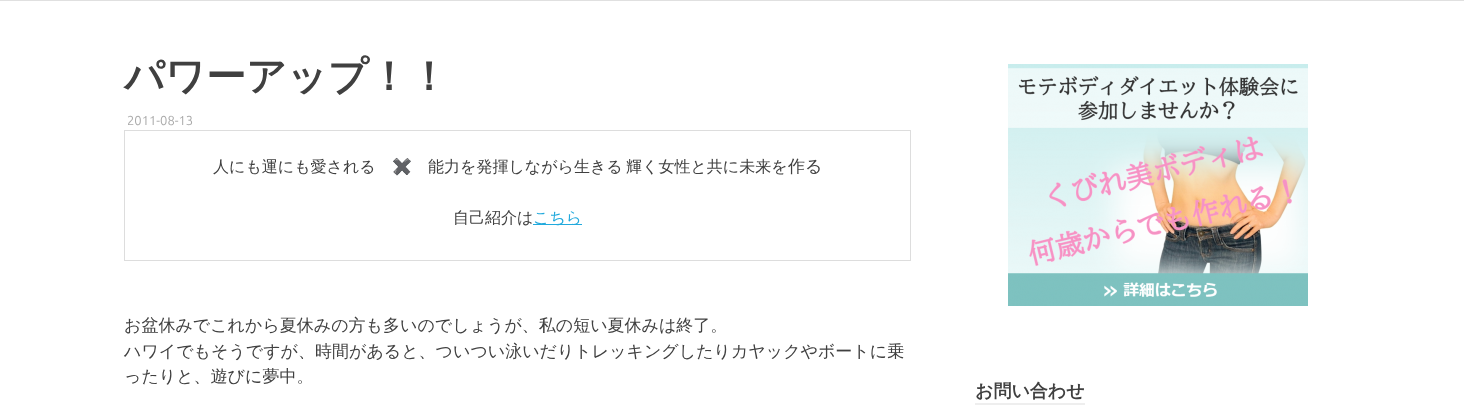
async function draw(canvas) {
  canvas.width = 1464;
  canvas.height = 405;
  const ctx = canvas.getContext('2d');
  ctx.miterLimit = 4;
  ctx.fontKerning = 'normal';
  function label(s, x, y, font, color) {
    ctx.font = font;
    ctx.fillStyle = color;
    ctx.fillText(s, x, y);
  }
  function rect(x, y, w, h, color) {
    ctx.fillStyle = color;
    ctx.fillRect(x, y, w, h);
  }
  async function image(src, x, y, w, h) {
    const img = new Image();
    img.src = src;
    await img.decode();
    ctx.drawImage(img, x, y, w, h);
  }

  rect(0, 0, 1464, 405, '#fff');
  rect(0, 0, 1464, 1, '#e0e0e0');
  label('パワーアップ！！', 124, 90, 'bold 40px WenQuanYi Zen Hei', '#404040');
  label('2011-08-13', 127, 125, '13px Ubuntu', '#aaa');
  rect(124, 130, 787, 1, '#ddd');
  rect(910, 130, 1, 131, '#ddd');
  rect(124, 260, 787, 1, '#ddd');
  rect(124, 130, 1, 131, '#ddd');
  label('人にも運にも愛される', 213, 172, '500 16px WenQuanYi Zen Hei', '#404040');
  label('✖️', 392, 172, '16px Noto Color Emoji', '#404040');
  label('能力を発揮しながら生きる', 428, 172, '500 16px WenQuanYi Zen Hei', '#404040');
  label('輝く女性と共に未来を', 626, 172, '500 16px WenQuanYi Zen Hei', '#404040');
  label('作る', 788, 172, '500 17px WenQuanYi Zen Hei', '#404040');
  label('自己紹介は', 453, 223, '500 16px WenQuanYi Zen Hei', '#404040');
  rect(533, 224, 49, 1, '#2ad');
  label('こちら', 533, 223, '500 16px WenQuanYi Zen Hei', '#2ad');
  label('お盆休みでこれから夏休みの方も多いのでしょうが、私の短い夏休みは終了。', 124, 331, '500 17px WenQuanYi Zen Hei', '#404040');
  label('ハワイでもそうですが、時間があると、ついつい泳いだりトレッキングしたりカヤックやボートに乗', 124, 357, '500 17px WenQuanYi Zen Hei', '#404040');
  label('ったりと、遊びに夢中。', 124, 382, '500 17px WenQuanYi Zen Hei', '#404040');
  await image('assets/img1.png', 1008, 64, 300, 242);
  rect(975, 403, 110, 2, '#eee');
  label('お問い合わせ', 975, 397, 'bold 18px WenQuanYi Zen Hei', '#404040');
}

draw(document.querySelector('canvas'));
